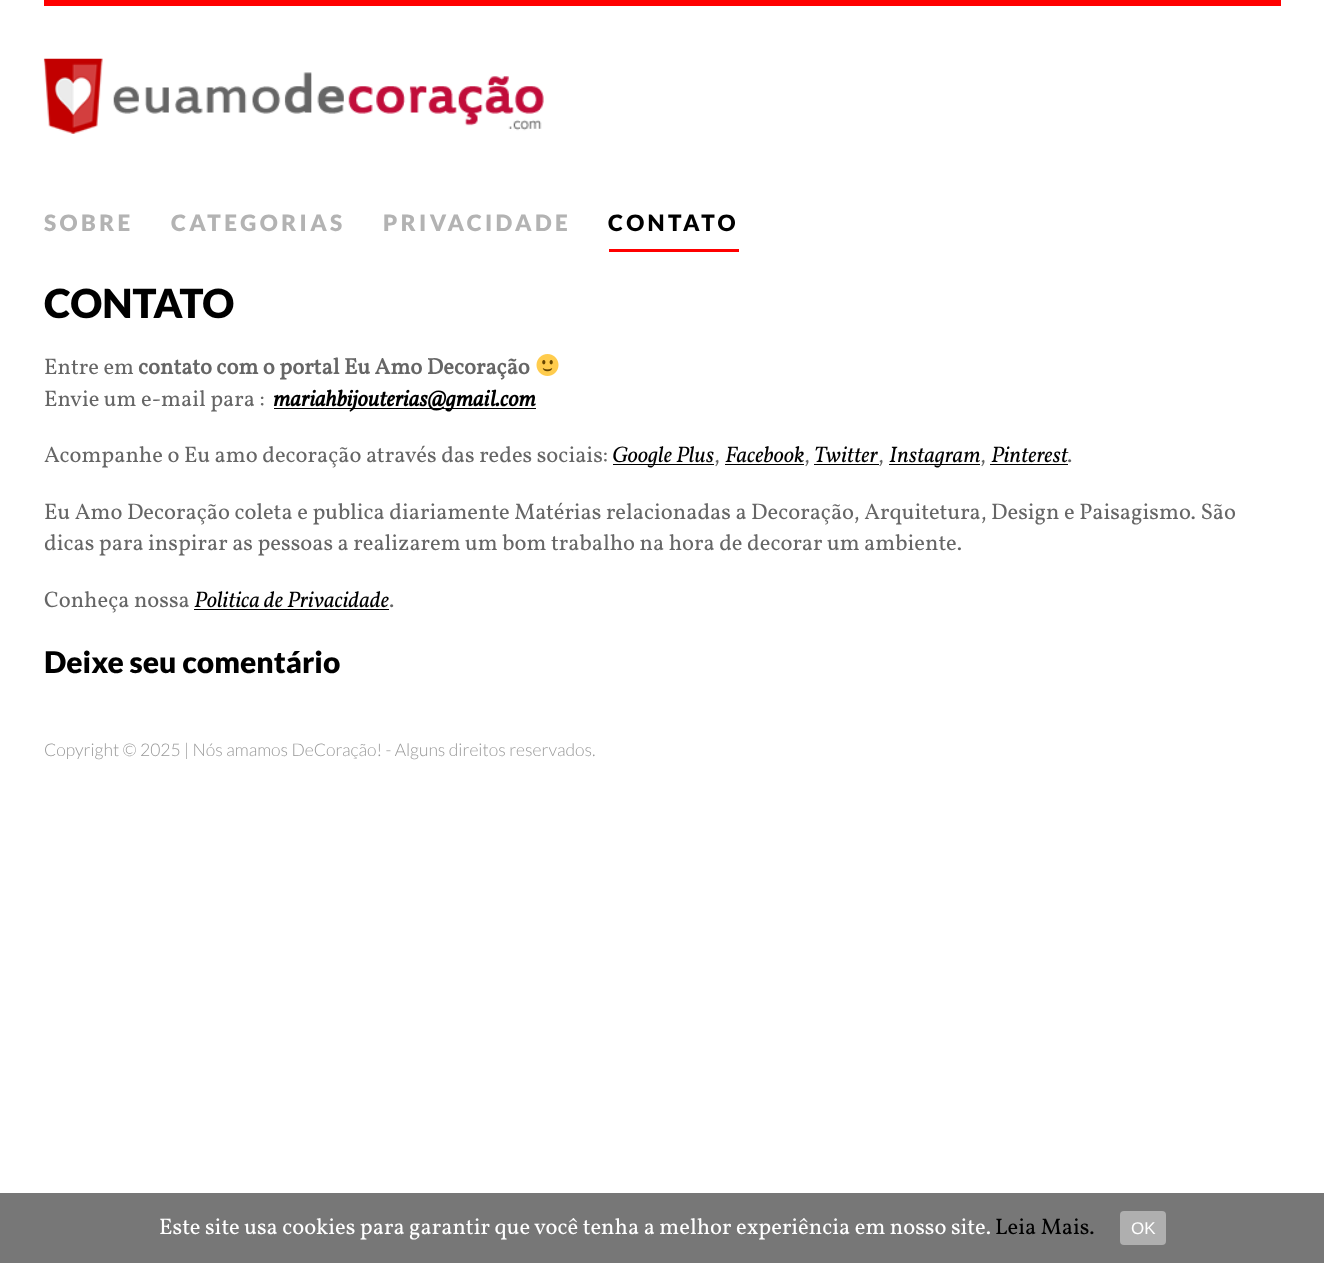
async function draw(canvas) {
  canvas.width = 1324;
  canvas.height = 1263;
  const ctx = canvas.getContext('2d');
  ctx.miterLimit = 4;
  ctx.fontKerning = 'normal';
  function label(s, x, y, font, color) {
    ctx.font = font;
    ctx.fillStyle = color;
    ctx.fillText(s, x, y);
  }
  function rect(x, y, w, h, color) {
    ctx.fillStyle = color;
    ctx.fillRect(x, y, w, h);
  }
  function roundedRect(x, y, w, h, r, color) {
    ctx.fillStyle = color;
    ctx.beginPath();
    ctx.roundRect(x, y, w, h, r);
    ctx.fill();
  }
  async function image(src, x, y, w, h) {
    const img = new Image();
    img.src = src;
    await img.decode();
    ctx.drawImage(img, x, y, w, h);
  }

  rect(0, 0, 1324, 1263, '#fff');
  rect(44, 0, 1237, 6, '#f00');
  await image('assets/img1.png', 43, 58, 501, 76);
  ctx.letterSpacing = '3.4px';
  label('SOBRE', 44, 231, '900 22.5px Lato', '#b3b3b3');
  label('CATEGORIAS', 171, 231, '900 22.5px Lato', '#b3b3b3');
  label('PRIVACIDADE', 383, 231, '900 22.5px Lato', '#b3b3b3');
  rect(609, 249, 130, 3, '#f00');
  label('CONTATO', 608, 231, '900 22.5px Lato', '#000');
  ctx.letterSpacing = '0px';
  label('CONTATO', 44, 318, '900 40px Lato', '#000');
  label('Entre em', 44, 374, '22.5px Vollkorn', '#666');
  label('contato com o portal Eu Amo Decoração', 138, 374, 'bold 22.5px Vollkorn', '#666');
  await image('assets/img2.png', 536, 354, 23, 22);
  label('Envie um e-mail para :', 44, 406, '22.5px Vollkorn', '#666');
  rect(274, 408, 262, 1, '#000');
  label('mariahbijouterias@gmail.com', 273, 406, 'italic bold 22.5px Vollkorn', '#000');
  label('Acompanhe o Eu amo decoração através das redes sociais:', 44, 462, '22.5px Vollkorn', '#666');
  rect(613, 464, 101, 1, '#000');
  label('Google Plus', 612, 462, 'italic 22.5px Vollkorn', '#000');
  label(',', 714, 462, '22.5px Vollkorn', '#666');
  label('Facebook', 725, 462, 'italic 22.5px Vollkorn', '#000');
  rect(725, 464, 79, 1, '#000');
  label(',', 804, 462, '22.5px Vollkorn', '#666');
  label('Twitter', 814, 462, 'italic 22.5px Vollkorn', '#000');
  rect(814, 464, 65, 1, '#000');
  label(',', 878, 462, '22.5px Vollkorn', '#666');
  rect(889, 464, 91, 1, '#000');
  label('Instagram', 889, 462, 'italic 22.5px Vollkorn', '#000');
  label(',', 980, 462, '22.5px Vollkorn', '#666');
  label('Pinterest', 991, 462, 'italic 22.5px Vollkorn', '#000');
  rect(990, 464, 78, 1, '#000');
  label('.', 1067, 462, '22.5px Vollkorn', '#666');
  label('Eu Amo Decoração coleta e publica diariamente Matérias relacionadas a Decoração, Arquitetura, Design e Paisagismo. São', 44, 519, '22.5px Vollkorn', '#666');
  label('dicas para inspirar as pessoas a realizarem um bom trabalho na hora de decorar um ambiente.', 44, 550, '22.5px Vollkorn', '#666');
  label('Conheça nossa', 44, 607, '22.5px Vollkorn', '#666');
  label('Politica de Privacidade', 194, 607, 'italic 22.5px Vollkorn', '#000');
  rect(194, 609, 195, 1, '#000');
  label('.', 389, 607, '22.5px Vollkorn', '#666');
  label('Deixe seu comentário', 44, 673, '900 30px Lato', '#000');
  label('Copyright © 2025 | Nós amamos DeCoração! - Alguns direitos reservados.', 44, 756, '300 17.5px Lato', '#999');
  rect(0, 1193, 1324, 70, '#777');
  label('Este site usa cookies para garantir que você tenha a melhor experiência em nosso site.', 159, 1234, '22.5px Vollkorn', '#fff');
  label('Leia Mais.', 995, 1234, '22.5px Vollkorn', '#000');
  roundedRect(1120, 1211, 46, 34, 4, '#afafaf');
  label('OK', 1131, 1234, '17px Liberation Sans', '#fff');
}

draw(document.querySelector('canvas'));
